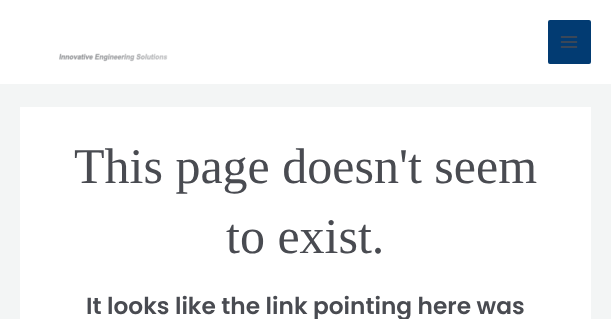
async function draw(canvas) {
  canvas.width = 611;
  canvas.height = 319;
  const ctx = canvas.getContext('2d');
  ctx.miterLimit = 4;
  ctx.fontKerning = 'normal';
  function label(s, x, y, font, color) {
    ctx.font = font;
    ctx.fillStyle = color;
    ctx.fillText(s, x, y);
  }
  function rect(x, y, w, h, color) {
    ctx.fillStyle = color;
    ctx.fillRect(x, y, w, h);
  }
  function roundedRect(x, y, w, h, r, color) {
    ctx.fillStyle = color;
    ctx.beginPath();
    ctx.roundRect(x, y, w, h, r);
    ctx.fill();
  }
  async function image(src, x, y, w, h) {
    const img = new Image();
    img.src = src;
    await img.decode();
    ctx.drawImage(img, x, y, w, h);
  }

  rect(0, 0, 611, 319, '#f3f5f5');
  rect(0, 0, 611, 84, '#fff');
  await image('assets/img1.png', 59, 53, 109, 9);
  roundedRect(548, 20, 43, 44, 2, '#023b72');
  await image('assets/img2.png', 560, 36, 18, 12);
  rect(20, 107, 571, 212, '#fff');
  label('This page doesn\'t seem', 74, 183, '50px Liberation Serif', '#494b51');
  label('to exist.', 226, 253, '50px Liberation Serif', '#494b51');
  label('It looks like the link pointing here was', 86, 314, '600 23.25px Poppins', '#494b51');
}

draw(document.querySelector('canvas'));
